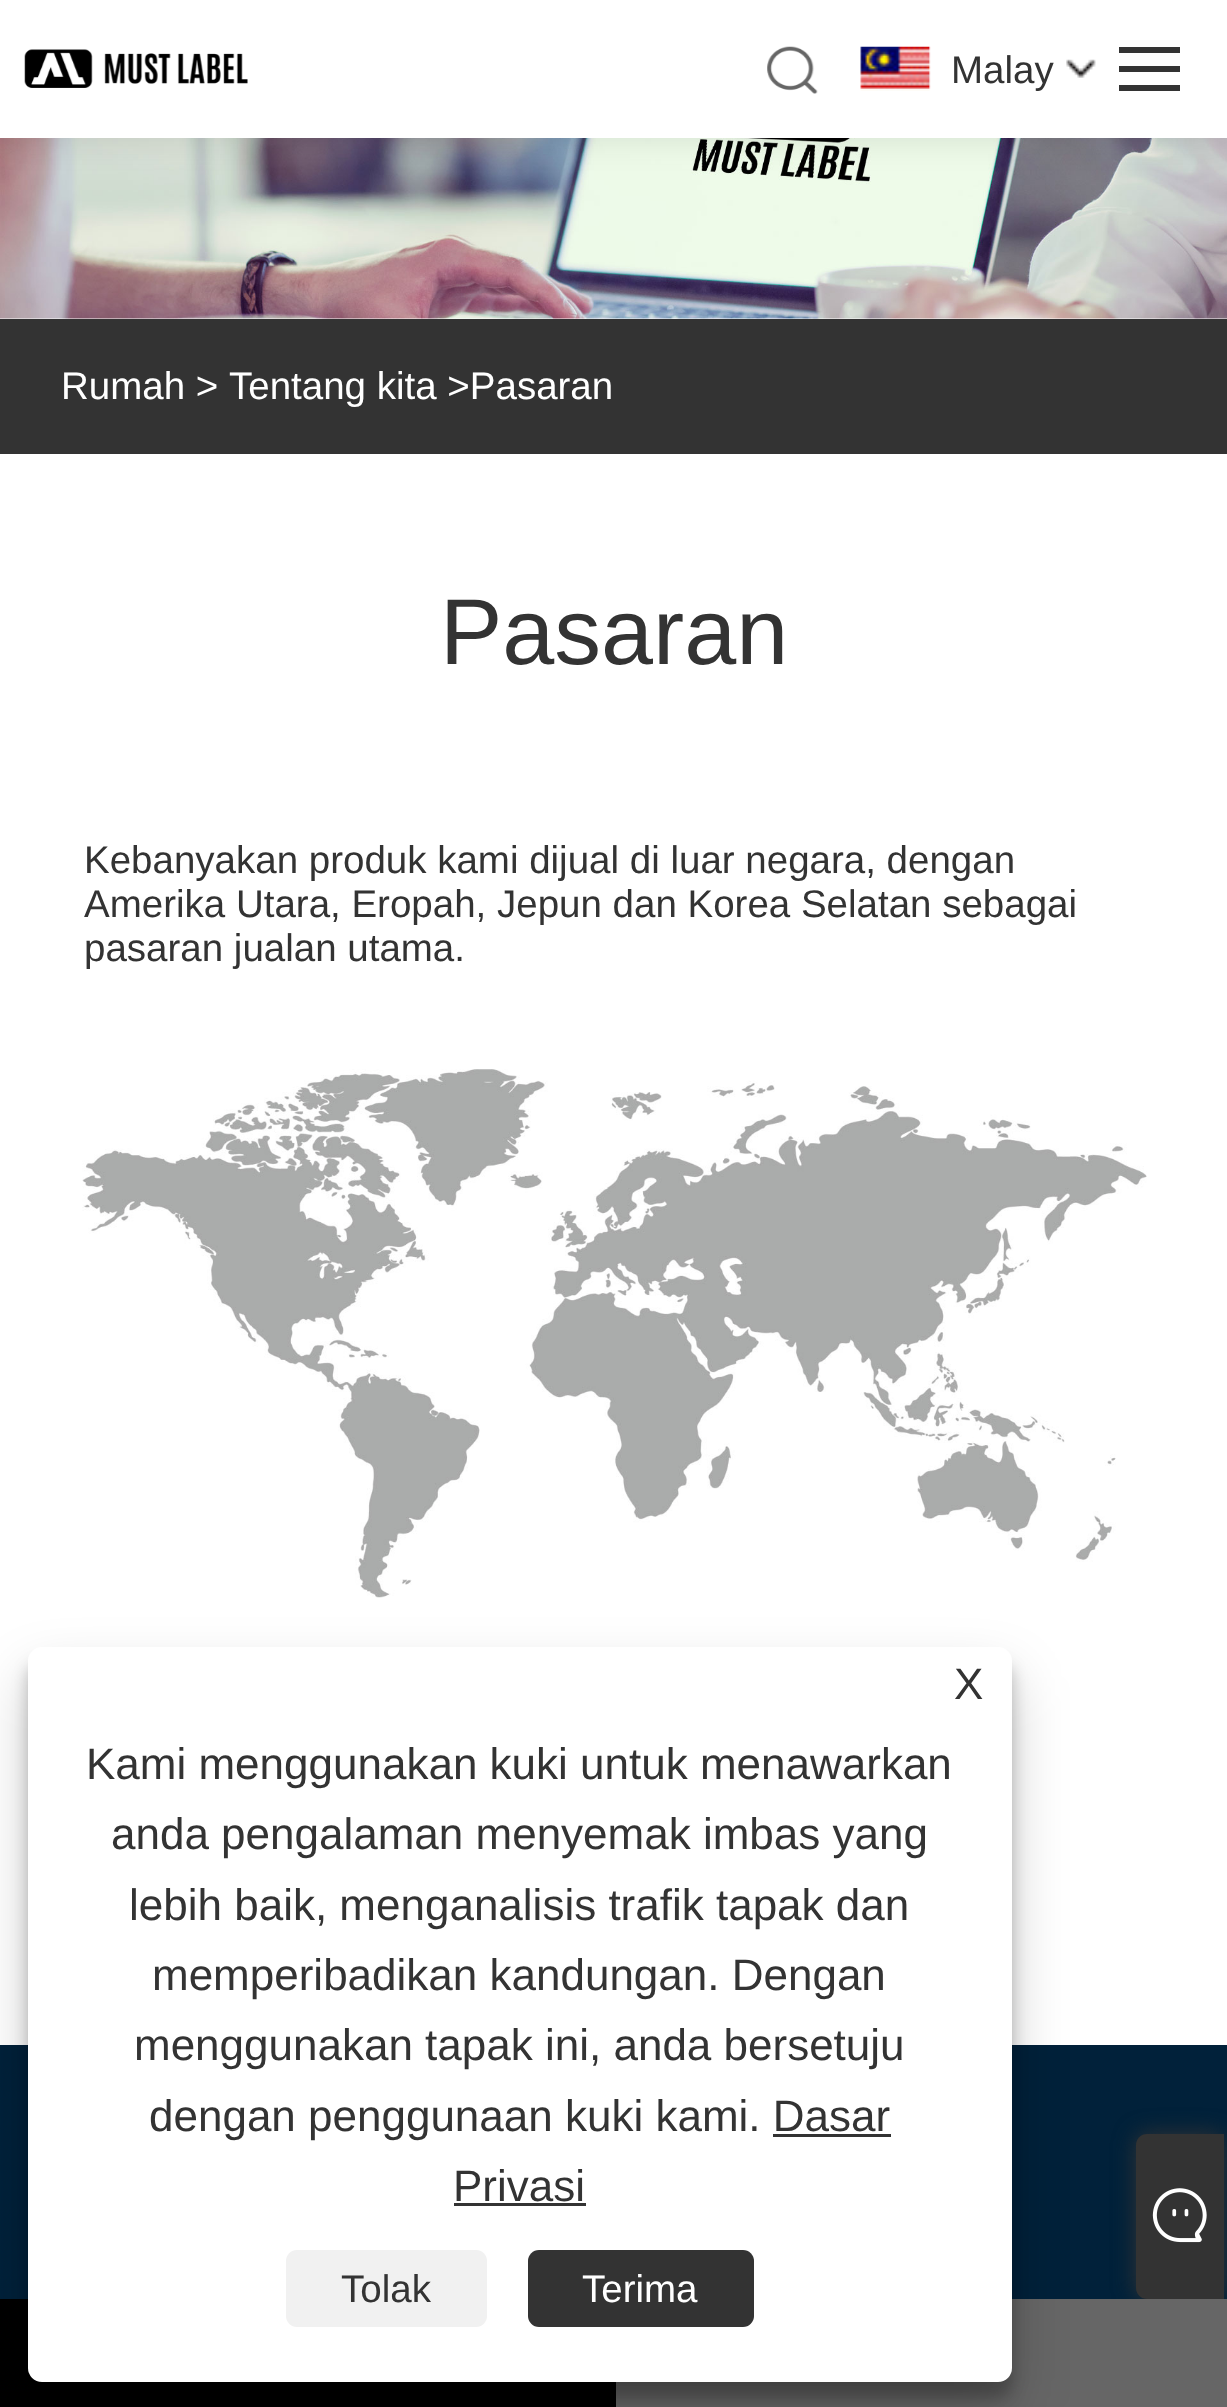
async function draw(canvas) {
  canvas.width = 1227;
  canvas.height = 2407;
  const ctx = canvas.getContext('2d');
  ctx.miterLimit = 4;
  ctx.fontKerning = 'normal';
  function label(s, x, y, font, color) {
    ctx.font = font;
    ctx.fillStyle = color;
    ctx.fillText(s, x, y);
  }
  function rect(x, y, w, h, color) {
    ctx.fillStyle = color;
    ctx.fillRect(x, y, w, h);
  }
  function roundedRect(x, y, w, h, r, color) {
    ctx.fillStyle = color;
    ctx.beginPath();
    ctx.roundRect(x, y, w, h, r);
    ctx.fill();
  }
  async function image(src, x, y, w, h) {
    const img = new Image();
    img.src = src;
    await img.decode();
    ctx.drawImage(img, x, y, w, h);
  }

  rect(0, 0, 1227, 2407, '#fff');
  await image('assets/img5.png', 0, 138, 1227, 181);
  ctx.fillStyle = '#0000001a';
  ctx.filter = 'blur(16.5px)';
  ctx.beginPath();
  ctx.rect(0, 3, 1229, 137);
  ctx.fill();
  ctx.filter = 'none';
  rect(0, 0, 1227, 138, '#fff');
  await image('assets/img1.png', 24, 49, 224, 39);
  await image('assets/img2.png', 767, 46, 51, 48);
  await image('assets/img3.png', 1066, 59, 30, 19);
  await image('assets/img4.png', 860, 46, 71, 45);
  label('Malay', 951, 83, '38.5px Liberation Sans', '#333');
  rect(1119, 47, 61, 6, '#333');
  rect(1119, 66, 61, 6, '#333');
  rect(1119, 85, 61, 6, '#333');
  rect(0, 319, 1227, 135, '#333');
  label('Rumah >', 61, 399, '38.5px Liberation Sans', '#fff');
  label('Tentang kita >Pasaran', 229, 399, '38.5px Liberation Sans', '#fff');
  label('Pasaran', 440, 664, '93.5px Liberation Sans', '#333');
  label('Kebanyakan produk kami dijual di luar negara, dengan', 84, 873, '38.5px Liberation Sans', '#333');
  label('Amerika Utara, Eropah, Jepun dan Korea Selatan sebagai', 84, 917, '38.5px Liberation Sans', '#333');
  label('pasaran jualan utama.', 84, 961, '38.5px Liberation Sans', '#333');
  await image('assets/img6.png', 82, 1069, 1065, 529);
  rect(0, 2045, 1227, 254, '#01213a');
  rect(0, 2299, 616, 108, '#000');
  ctx.fillStyle = '#333';
  ctx.filter = 'blur(11px)';
  ctx.beginPath();
  ctx.roundRect(1136, 2134, 88, 165, 11);
  ctx.fill();
  ctx.filter = 'none';
  rect(616, 2299, 611, 108, '#666');
  ctx.fillStyle = '#0000003b';
  ctx.filter = 'blur(8px)';
  ctx.beginPath();
  ctx.roundRect(28, 1664, 984, 734, 14);
  ctx.fill();
  ctx.filter = 'none';
  ctx.fillStyle = '#00000030';
  ctx.filter = 'blur(27.5px)';
  ctx.beginPath();
  ctx.roundRect(28, 1675, 984, 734, 14);
  ctx.fill();
  ctx.filter = 'none';
  roundedRect(28, 1647, 984, 735, 14, '#fff');
  label('X', 954, 1699, '44px Liberation Sans', '#333');
  label('Kami menggunakan kuki untuk menawarkan', 86, 1779, '44px Liberation Sans', '#333');
  label('anda pengalaman menyemak imbas yang', 111, 1849, '44px Liberation Sans', '#333');
  label('lebih baik, menganalisis trafik tapak dan', 129, 1920, '44px Liberation Sans', '#333');
  label('memperibadikan kandungan. Dengan', 152, 1990, '44px Liberation Sans', '#333');
  label('menggunakan tapak ini, anda bersetuju', 134, 2060, '44px Liberation Sans', '#333');
  label('dengan penggunaan kuki kami. Dasar', 149, 2131, '44px Liberation Sans', '#333');
  label('Privasi', 453, 2201, '44px Liberation Sans', '#333');
  rect(773, 2134, 118, 3, '#333');
  rect(454, 2203, 132, 3, '#333');
  roundedRect(286, 2250, 201, 77, 11, '#f1f1f1');
  label('Tolak', 341, 2302, '38.5px Liberation Sans', '#333');
  roundedRect(528, 2250, 226, 77, 11, '#333');
  label('Terima', 582, 2302, '38.5px Liberation Sans', '#fff');
  ctx.fillStyle = '#333';
  ctx.beginPath();
  ctx.roundRect(1136, 2134, 88, 165, [11, 0, 0, 11]);
  ctx.fill();
  await image('assets/img7.png', 1152, 2188, 55, 55);
}

draw(document.querySelector('canvas'));
